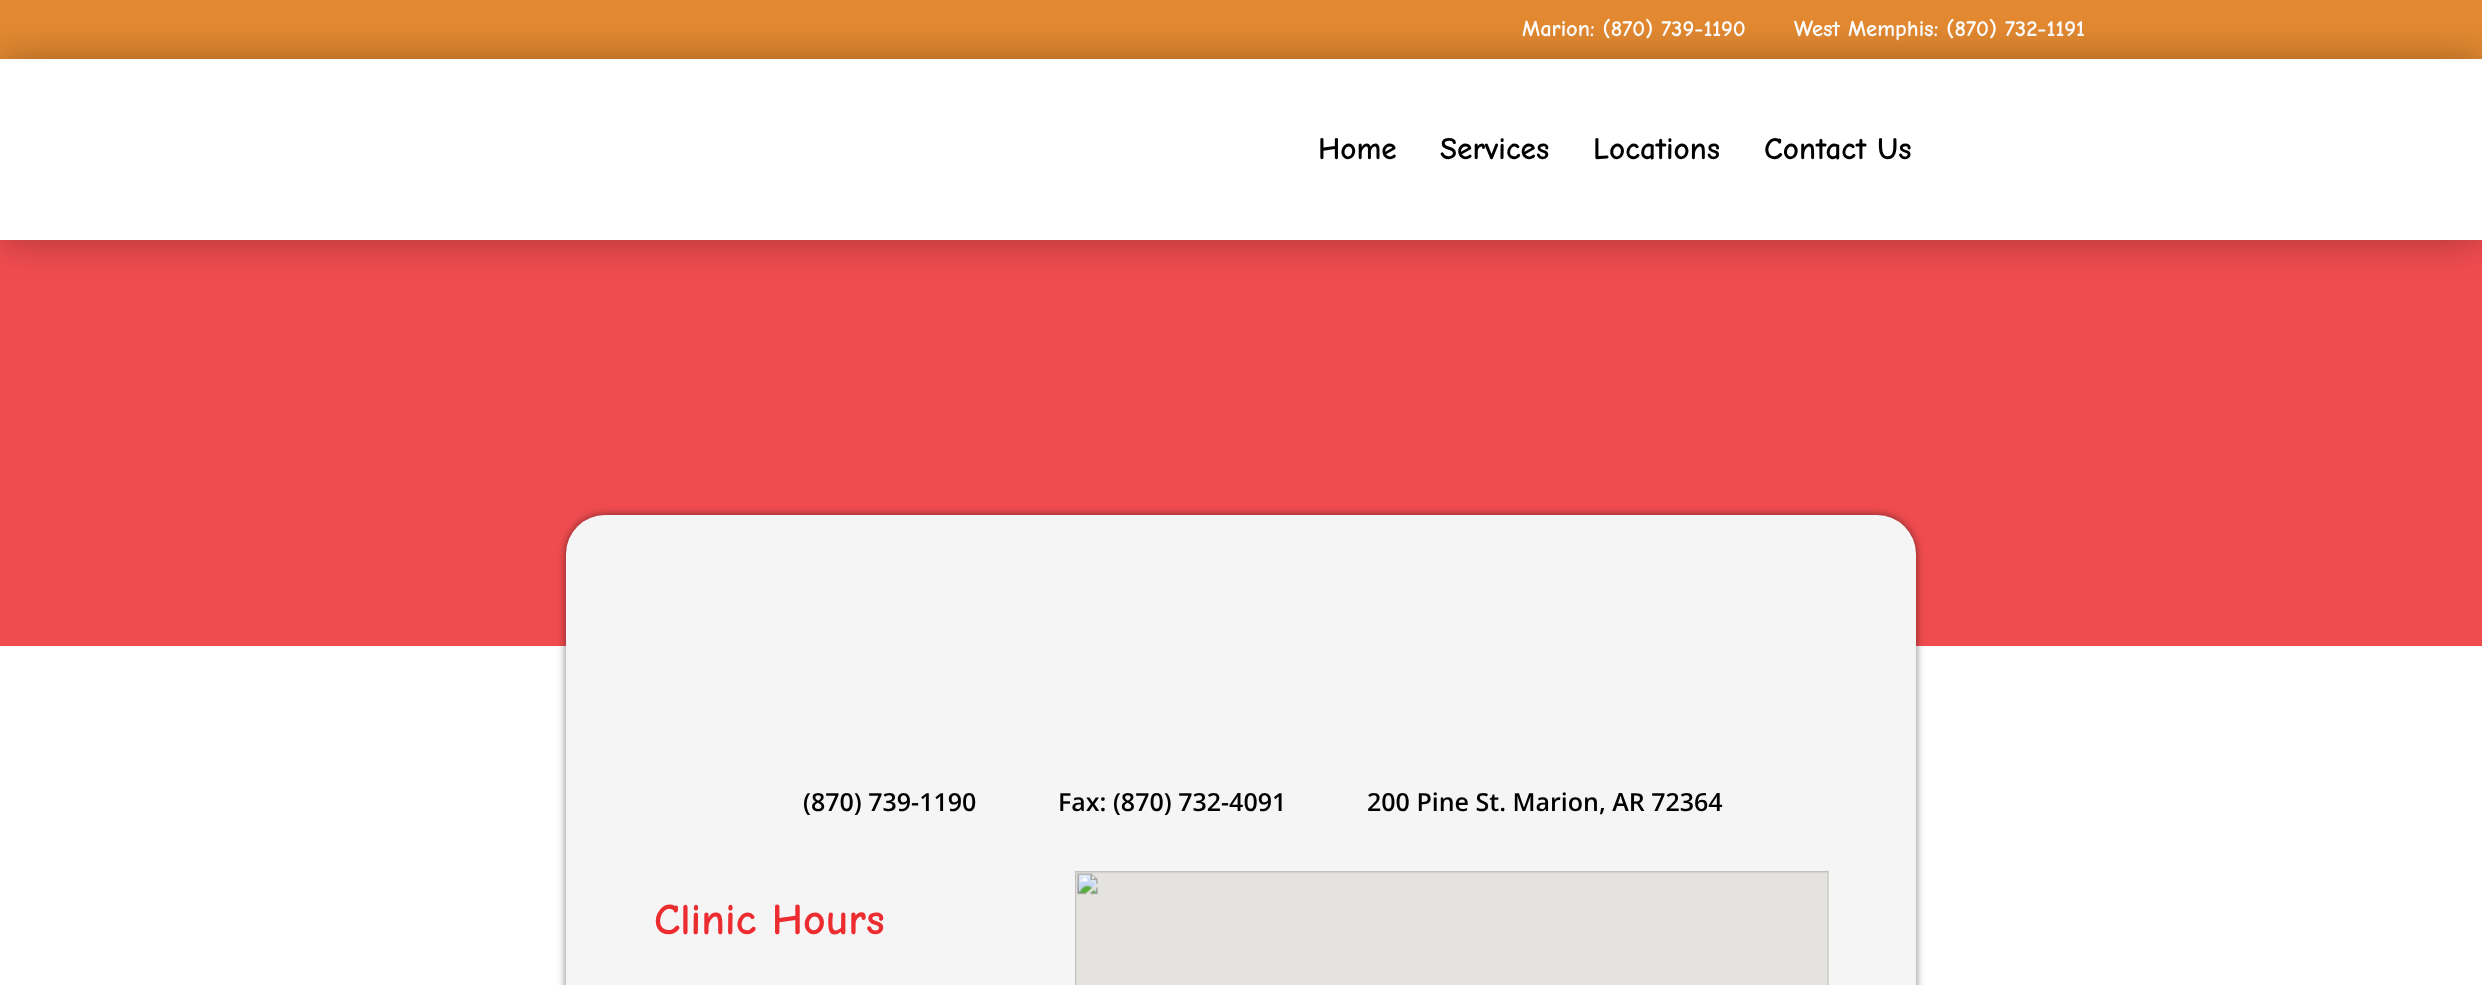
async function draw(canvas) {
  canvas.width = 2482;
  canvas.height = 985;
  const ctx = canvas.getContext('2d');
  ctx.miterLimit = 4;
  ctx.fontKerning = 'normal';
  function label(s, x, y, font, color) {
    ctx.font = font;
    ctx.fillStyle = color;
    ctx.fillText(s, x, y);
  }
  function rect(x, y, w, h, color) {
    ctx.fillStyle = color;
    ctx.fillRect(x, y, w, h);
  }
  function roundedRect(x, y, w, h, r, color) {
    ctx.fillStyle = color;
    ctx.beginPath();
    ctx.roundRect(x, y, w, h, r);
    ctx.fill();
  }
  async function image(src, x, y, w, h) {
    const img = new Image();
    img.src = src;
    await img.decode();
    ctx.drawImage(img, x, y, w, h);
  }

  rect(0, 0, 2482, 985, '#fff');
  rect(0, 0, 2482, 59, '#e38931');
  label('Marion: (870) 739-1190', 1522, 36, 'bold 22.5px Comic Neue', '#fff');
  label('West Memphis: (870) 732-1191', 1794, 36, 'bold 22.5px Comic Neue', '#fff');
  rect(0, 240, 2482, 406, '#f04c4f');
  ctx.fillStyle = '#0000004d';
  ctx.filter = 'blur(19px)';
  ctx.beginPath();
  ctx.rect(0, 59, 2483, 181);
  ctx.fill();
  ctx.filter = 'none';
  rect(0, 59, 2482, 181, '#fff');
  label('Home', 1318, 159, 'bold 31.25px Comic Neue', '#000');
  label('Services', 1440, 159, 'bold 31.25px Comic Neue', '#000');
  label('Locations', 1593, 159, 'bold 31.25px Comic Neue', '#000');
  label('Contact Us', 1764, 159, 'bold 31.25px Comic Neue', '#000');
  ctx.fillStyle = '#00000080';
  ctx.filter = 'blur(4.5px)';
  ctx.beginPath();
  ctx.roundRect(566, 515, 1350, 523, 39);
  ctx.fill();
  ctx.filter = 'none';
  roundedRect(566, 515, 1350, 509, 39, '#f5f5f5');
  label('(870) 739-1190', 803, 811, '600 25px Open Sans', '#000');
  label('Fax: (870) 732-4091', 1058, 811, '600 25px Open Sans', '#000');
  label('200 Pine St. Marion, AR 72364', 1367, 811, '600 25px Open Sans', '#000');
  label('Clinic Hours', 654, 934, 'bold 43.75px Comic Neue', '#ed2c30');
  await image('assets/img1.png', 1075, 871, 754, 114);
}

draw(document.querySelector('canvas'));
